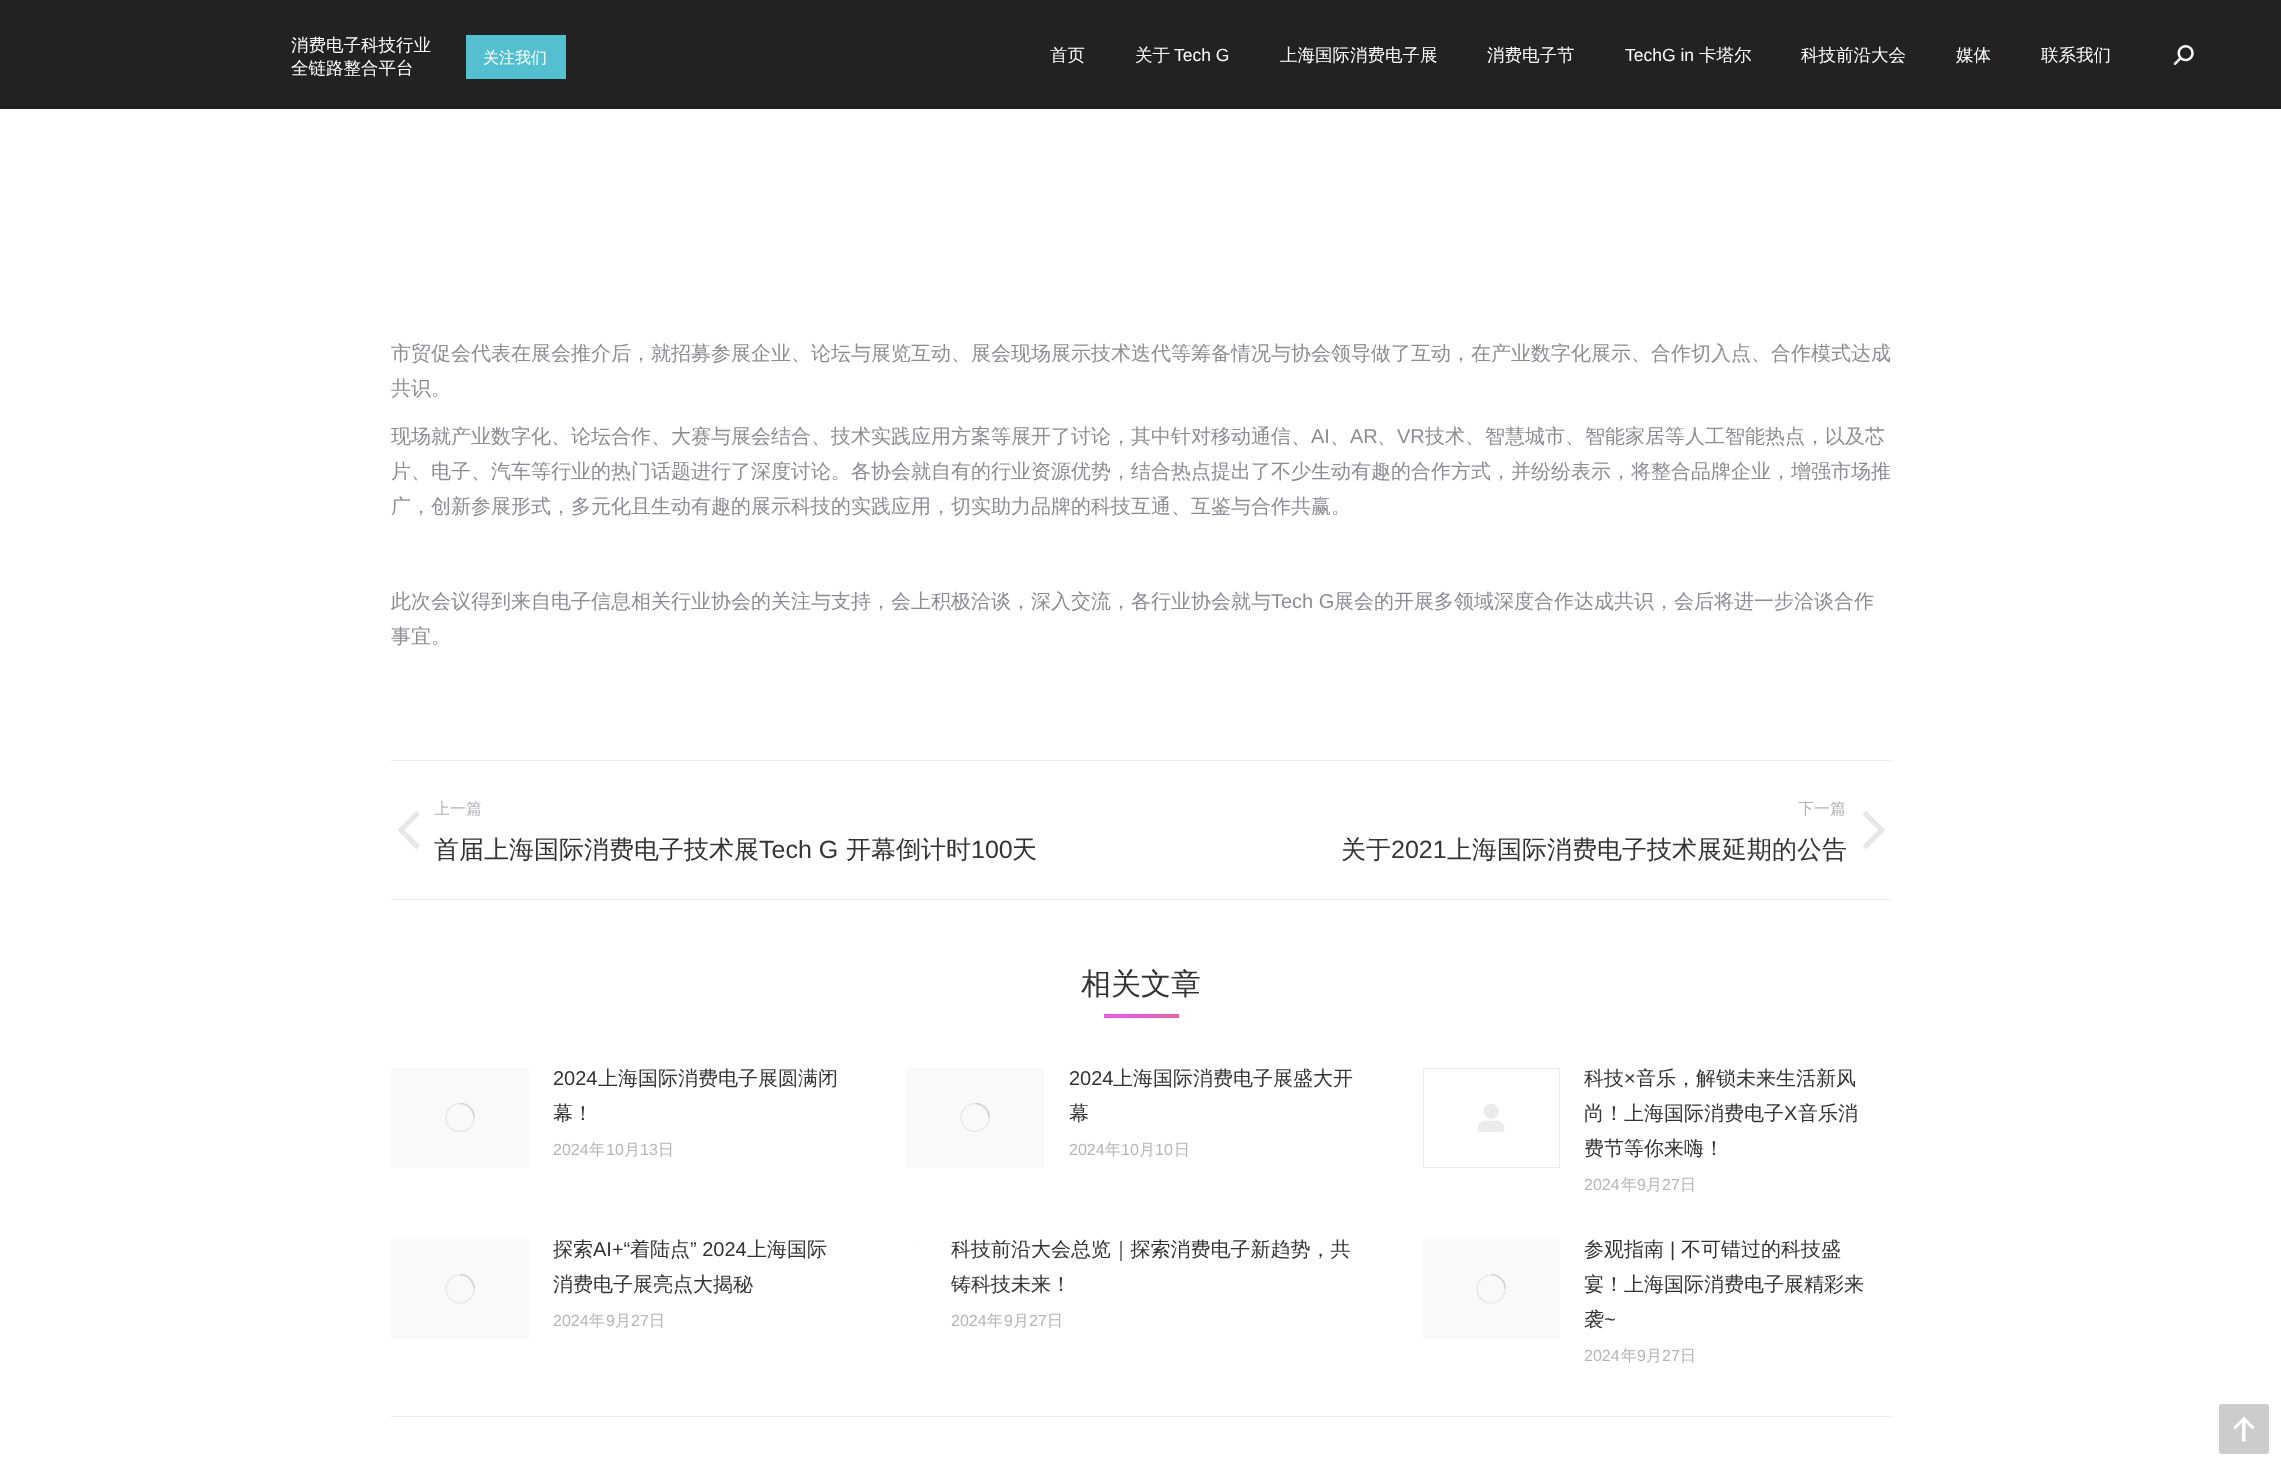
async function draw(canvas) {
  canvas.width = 2281;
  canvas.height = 1466;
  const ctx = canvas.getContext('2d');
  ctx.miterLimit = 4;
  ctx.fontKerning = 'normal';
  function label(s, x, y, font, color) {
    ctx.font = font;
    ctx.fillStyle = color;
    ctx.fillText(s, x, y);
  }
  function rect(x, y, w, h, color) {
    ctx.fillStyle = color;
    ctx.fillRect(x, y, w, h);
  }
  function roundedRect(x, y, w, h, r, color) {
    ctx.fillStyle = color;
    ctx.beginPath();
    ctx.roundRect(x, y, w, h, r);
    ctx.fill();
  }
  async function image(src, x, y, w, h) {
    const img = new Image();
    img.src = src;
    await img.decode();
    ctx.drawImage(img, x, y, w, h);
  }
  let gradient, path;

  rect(0, 0, 2281, 1466, '#fff');
  rect(0, 0, 2281, 109, '#232121');
  label('消费电子科技行业', 291, 51, '500 17.5px WenQuanYi Zen Hei', '#fff');
  label('全链路整合平台', 291, 74, '500 17.5px WenQuanYi Zen Hei', '#fff');
  rect(466, 35, 100, 44, '#54c0cf');
  label('关注我们', 483, 63, '500 16px WenQuanYi Zen Hei', '#fff');
  label('首页', 1050, 61, '500 17.5px WenQuanYi Zen Hei', '#fff');
  label('关于', 1135, 61, '500 17.5px WenQuanYi Zen Hei', '#fff');
  label('Tech G', 1174, 61, '17.5px Liberation Sans', '#fff');
  label('上海国际消费电子展', 1280, 61, '500 17.5px WenQuanYi Zen Hei', '#fff');
  label('消费电子节', 1487, 61, '500 17.5px WenQuanYi Zen Hei', '#fff');
  label('TechG in', 1625, 61, '17.5px Liberation Sans', '#fff');
  label('卡塔尔', 1699, 61, '500 17.5px WenQuanYi Zen Hei', '#fff');
  label('科技前沿大会', 1801, 61, '500 17.5px WenQuanYi Zen Hei', '#fff');
  label('媒体', 1956, 61, '500 17.5px WenQuanYi Zen Hei', '#fff');
  label('联系我们', 2041, 61, '500 17.5px WenQuanYi Zen Hei', '#fff');
  await image('assets/img1.png', 2173, 45, 21, 20);
  label('市贸促会代表在展会推介后，就招募参展企业、论坛与展览互动、展会现场展示技术迭代等筹备情况与协会领导做了互动，在产业数字化展示、合作切入点、合作模式达成', 391, 360, '500 20px WenQuanYi Zen Hei', '#8b8d94');
  label('共识。', 391, 395, '500 20px WenQuanYi Zen Hei', '#8b8d94');
  label('现场就产业数字化、论坛合作、大赛与展会结合、技术实践应用方案等展开了讨论，其中针对移动通信、', 391, 443, '500 20px WenQuanYi Zen Hei', '#8b8d94');
  label('AI', 1311, 443, '20px Liberation Sans', '#8b8d94');
  label('AR', 1350, 443, '20px Liberation Sans', '#8b8d94');
  label('VR', 1397, 443, '20px Liberation Sans', '#8b8d94');
  label('技术、智慧城市、智能家居等人工智能热点，以及芯', 1425, 443, '500 20px WenQuanYi Zen Hei', '#8b8d94');
  label('、', 1330, 443, '500 20px WenQuanYi Zen Hei', '#8b8d94');
  label('、', 1377, 443, '500 20px WenQuanYi Zen Hei', '#8b8d94');
  label('片、电子、汽车等行业的热门话题进行了深度讨论。各协会就自有的行业资源优势，结合热点提出了不少生动有趣的合作方式，并纷纷表示，将整合品牌企业，增强市场推', 391, 478, '500 20px WenQuanYi Zen Hei', '#8b8d94');
  label('广，创新参展形式，多元化且生动有趣的展示科技的实践应用，切实助力品牌的科技互通、互鉴与合作共赢。', 391, 513, '500 20px WenQuanYi Zen Hei', '#8b8d94');
  label('此次会议得到来自电子信息相关行业协会的关注与支持，会上积极洽谈，深入交流，各行业协会就与', 391, 608, '500 20px WenQuanYi Zen Hei', '#8b8d94');
  label('Tech G', 1271, 608, '20px Liberation Sans', '#8b8d94');
  label('展会的开展多领域深度合作达成共识，会后将进一步洽谈合作', 1334, 608, '500 20px WenQuanYi Zen Hei', '#8b8d94');
  label('事宜。', 391, 643, '500 20px WenQuanYi Zen Hei', '#8b8d94');
  rect(391, 760, 1500, 1, '#ebebeb');
  rect(391, 899, 1500, 1, '#ebebeb');
  ctx.fillStyle = '#e7e7e7';
  path = new Path2D('M404.5 830L420 814.5L416.5 810.5L397.5 830L416.5 849.5L420 845.5Z');
  ctx.fill(path);
  label('上一篇', 434, 814, '500 16px WenQuanYi Zen Hei', '#b4b5bb');
  label('首届上海国际消费电子技术展', 434, 858, '500 25px WenQuanYi Zen Hei', '#333');
  label('Tech G', 759, 858, '25px Liberation Sans', '#333');
  label('开幕倒计时', 846, 858, '500 25px WenQuanYi Zen Hei', '#333');
  label('100', 971, 858, '25px Liberation Sans', '#333');
  label('天', 1012, 858, '500 25px WenQuanYi Zen Hei', '#333');
  label('下一篇', 1798, 814, '500 16px WenQuanYi Zen Hei', '#b4b5bb');
  ctx.fillStyle = '#e7e7e7';
  path = new Path2D('M1878 830L1862.5 814.5L1866 810.5L1885 830L1866 849.5L1862.5 845.5Z');
  ctx.fill(path);
  label('关于', 1341, 858, '500 25px WenQuanYi Zen Hei', '#333');
  label('2021', 1391, 858, '25px Liberation Sans', '#333');
  label('上海国际消费电子技术展延期的公告', 1447, 858, '500 25px WenQuanYi Zen Hei', '#333');
  rect(391, 1416, 1500, 1, '#ebebeb');
  label('相关文章', 1081, 994, '500 30px WenQuanYi Zen Hei', '#333');
  gradient = ctx.createLinearGradient(1104, 1016, 1179, 1016);
  gradient.addColorStop(0.3, '#ea5be5');
  gradient.addColorStop(1, '#e064a1');
  ctx.fillStyle = gradient;
  ctx.fillRect(1104, 1014, 75, 4);
  rect(391, 1068, 138, 100, '#f9f9fa');
  ctx.save();
  ctx.beginPath();
  ctx.rect(445, 1103, 30, 30);
  ctx.clip();
  ctx.beginPath();
  ctx.arc(460, 1117.5, 14, 0, 2 * Math.PI);
  ctx.strokeStyle = '#eaeaec';
  ctx.lineWidth = 1.6;
  ctx.stroke();
  ctx.restore();
  path = new Path2D('M474 1117.5C474 1109.5 468 1103.5 460 1103.5');
  ctx.strokeStyle = '#8b8d9440';
  ctx.lineWidth = 1.6;
  ctx.stroke(path);
  label('2024', 553, 1085, '20px Liberation Sans', '#333');
  label('上海国际消费电子展圆满闭', 598, 1085, '500 20px WenQuanYi Zen Hei', '#333');
  label('幕！', 553, 1120, '500 20px WenQuanYi Zen Hei', '#333');
  label('2024', 553, 1155, '16px Liberation Sans', '#b4b5bb');
  label('年', 589, 1155, '500 16px WenQuanYi Zen Hei', '#b4b5bb');
  label('10', 606, 1155, '16px Liberation Sans', '#b4b5bb');
  label('月', 624, 1155, '500 16px WenQuanYi Zen Hei', '#b4b5bb');
  label('13', 640, 1155, '16px Liberation Sans', '#b4b5bb');
  label('日', 658, 1155, '500 16px WenQuanYi Zen Hei', '#b4b5bb');
  rect(906, 1068, 138, 100, '#f9f9fa');
  ctx.save();
  ctx.beginPath();
  ctx.rect(960, 1103, 30, 30);
  ctx.clip();
  ctx.beginPath();
  ctx.arc(975, 1117.5, 14, 0, 2 * Math.PI);
  ctx.strokeStyle = '#eaeaec';
  ctx.stroke();
  ctx.restore();
  path = new Path2D('M989 1117.5C989 1109.5 983 1103.5 975 1103.5');
  ctx.stroke(path);
  label('2024', 1069, 1085, '20px Liberation Sans', '#333');
  label('上海国际消费电子展盛大开', 1113, 1085, '500 20px WenQuanYi Zen Hei', '#333');
  label('幕', 1069, 1120, '500 20px WenQuanYi Zen Hei', '#333');
  label('2024', 1069, 1155, '16px Liberation Sans', '#b4b5bb');
  label('年', 1105, 1155, '500 16px WenQuanYi Zen Hei', '#b4b5bb');
  label('10', 1121, 1155, '16px Liberation Sans', '#b4b5bb');
  label('月', 1139, 1155, '500 16px WenQuanYi Zen Hei', '#b4b5bb');
  label('10', 1155, 1155, '16px Liberation Sans', '#b4b5bb');
  label('日', 1174, 1155, '500 16px WenQuanYi Zen Hei', '#b4b5bb');
  ctx.strokeStyle = '#ebebeb';
  ctx.lineWidth = 1;
  ctx.strokeRect(1423.5, 1068.5, 136, 99);
  await image('assets/img2.png', 1478, 1104, 27, 28);
  label('科技', 1584, 1085, '500 20px WenQuanYi Zen Hei', '#333');
  label('×', 1624, 1085, '20px Liberation Sans', '#333');
  label('音乐，解锁未来生活新风', 1636, 1085, '500 20px WenQuanYi Zen Hei', '#333');
  label('尚！上海国际消费电子', 1584, 1120, '500 20px WenQuanYi Zen Hei', '#333');
  label('X', 1784, 1120, '20px Liberation Sans', '#333');
  label('音乐消', 1798, 1120, '500 20px WenQuanYi Zen Hei', '#333');
  label('费节等你来嗨！', 1584, 1155, '500 20px WenQuanYi Zen Hei', '#333');
  label('2024', 1584, 1190, '16px Liberation Sans', '#b4b5bb');
  label('年', 1621, 1190, '500 16px WenQuanYi Zen Hei', '#b4b5bb');
  label('9', 1637, 1190, '16px Liberation Sans', '#b4b5bb');
  label('月', 1646, 1190, '500 16px WenQuanYi Zen Hei', '#b4b5bb');
  label('27', 1662, 1190, '16px Liberation Sans', '#b4b5bb');
  label('日', 1680, 1190, '500 16px WenQuanYi Zen Hei', '#b4b5bb');
  rect(391, 1239, 138, 100, '#f9f9fa');
  ctx.beginPath();
  ctx.arc(460, 1289, 14, 0, 2 * Math.PI);
  ctx.strokeStyle = '#eaeaec';
  ctx.lineWidth = 1.6;
  ctx.stroke();
  path = new Path2D('M474 1289C474 1281 468 1274.5 460 1274.5');
  ctx.strokeStyle = '#8b8d9440';
  ctx.stroke(path);
  label('探索', 553, 1256, '500 20px WenQuanYi Zen Hei', '#333');
  label('AI+“', 593, 1256, '20px Liberation Sans', '#333');
  label('着陆点', 630, 1256, '500 20px WenQuanYi Zen Hei', '#333');
  label('” 2024', 690, 1256, '20px Liberation Sans', '#333');
  label('上海国际', 747, 1256, '500 20px WenQuanYi Zen Hei', '#333');
  label('消费电子展亮点大揭秘', 553, 1291, '500 20px WenQuanYi Zen Hei', '#333');
  label('2024', 553, 1326, '16px Liberation Sans', '#b4b5bb');
  label('年', 589, 1326, '500 16px WenQuanYi Zen Hei', '#b4b5bb');
  label('9', 606, 1326, '16px Liberation Sans', '#b4b5bb');
  label('月', 615, 1326, '500 16px WenQuanYi Zen Hei', '#b4b5bb');
  label('27', 631, 1326, '16px Liberation Sans', '#b4b5bb');
  label('日', 649, 1326, '500 16px WenQuanYi Zen Hei', '#b4b5bb');
  await image('assets/img3.png', 914, 1244, 4, 2);
  label('科技前沿大会总览｜探索消费电子新趋势，共', 951, 1256, '500 20px WenQuanYi Zen Hei', '#333');
  label('铸科技未来！', 951, 1291, '500 20px WenQuanYi Zen Hei', '#333');
  label('2024', 951, 1326, '16px Liberation Sans', '#b4b5bb');
  label('年', 987, 1326, '500 16px WenQuanYi Zen Hei', '#b4b5bb');
  label('9', 1004, 1326, '16px Liberation Sans', '#b4b5bb');
  label('月', 1013, 1326, '500 16px WenQuanYi Zen Hei', '#b4b5bb');
  label('27', 1029, 1326, '16px Liberation Sans', '#b4b5bb');
  label('日', 1047, 1326, '500 16px WenQuanYi Zen Hei', '#b4b5bb');
  rect(1423, 1239, 137, 100, '#f9f9fa');
  ctx.beginPath();
  ctx.arc(1491, 1289, 14, 0, 2 * Math.PI);
  ctx.strokeStyle = '#eaeaec';
  ctx.stroke();
  path = new Path2D('M1505.5 1289C1505.5 1281 1499 1274.5 1491 1274.5');
  ctx.strokeStyle = '#8b8d9440';
  ctx.stroke(path);
  label('参观指南', 1584, 1256, '500 20px WenQuanYi Zen Hei', '#333');
  label('|', 1670, 1256, '20px Liberation Sans', '#333');
  label('不可错过的科技盛', 1681, 1256, '500 20px WenQuanYi Zen Hei', '#333');
  label('宴！上海国际消费电子展精彩来', 1584, 1291, '500 20px WenQuanYi Zen Hei', '#333');
  label('袭', 1584, 1326, '500 20px WenQuanYi Zen Hei', '#333');
  label('~', 1604, 1326, '20px Liberation Sans', '#333');
  label('2024', 1584, 1361, '16px Liberation Sans', '#b4b5bb');
  label('年', 1621, 1361, '500 16px WenQuanYi Zen Hei', '#b4b5bb');
  label('9', 1637, 1361, '16px Liberation Sans', '#b4b5bb');
  label('月', 1646, 1361, '500 16px WenQuanYi Zen Hei', '#b4b5bb');
  label('27', 1662, 1361, '16px Liberation Sans', '#b4b5bb');
  label('日', 1680, 1361, '500 16px WenQuanYi Zen Hei', '#b4b5bb');
  roundedRect(2219, 1404, 50, 50, 2.5, '#ccc');
  ctx.fillStyle = '#fff';
  path = new Path2D('M2233 1427.5L2235 1429.5L2242 1422.5V1441.5H2245.5V1422.5L2252.5 1429.5L2254.5 1427.5L2244 1416.5Z');
  ctx.fill(path);
}

draw(document.querySelector('canvas'));
